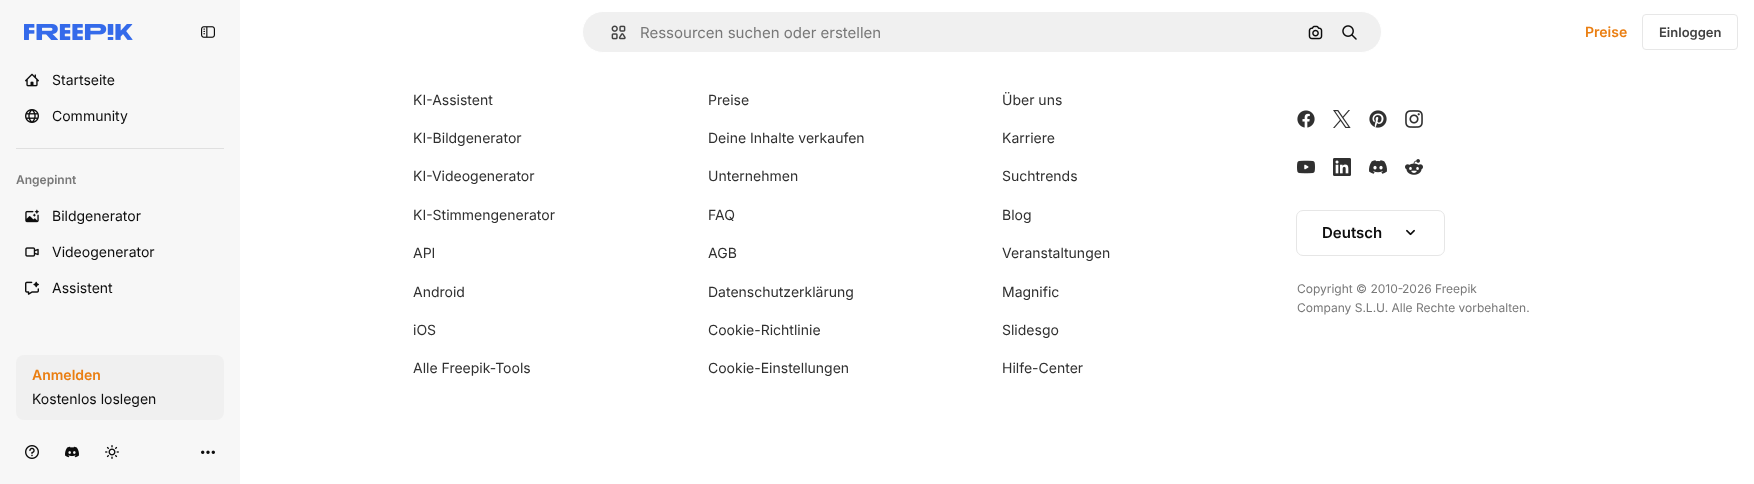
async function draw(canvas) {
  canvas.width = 1754;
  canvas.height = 484;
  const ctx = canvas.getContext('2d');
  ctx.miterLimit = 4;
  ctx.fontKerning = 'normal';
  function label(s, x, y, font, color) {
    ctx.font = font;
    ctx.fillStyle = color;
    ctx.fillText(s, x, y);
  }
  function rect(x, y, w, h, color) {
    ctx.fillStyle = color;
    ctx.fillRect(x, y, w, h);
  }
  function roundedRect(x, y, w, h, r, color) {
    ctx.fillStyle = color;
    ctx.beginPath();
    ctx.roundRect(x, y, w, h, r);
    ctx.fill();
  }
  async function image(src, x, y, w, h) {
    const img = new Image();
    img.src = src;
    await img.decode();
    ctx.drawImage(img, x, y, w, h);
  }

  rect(0, 0, 1754, 484, '#fff');
  rect(0, 0, 240, 484, '#f7f7f7');
  await image('assets/img1.png', 24, 24, 109, 16);
  await image('assets/img2.png', 201, 26, 14, 12);
  await image('assets/img3.png', 25, 73, 14, 14);
  label('Startseite', 52, 85, '14px Inter', '#0d0d0d');
  await image('assets/img4.png', 25, 109, 14, 14);
  label('Community', 52, 121, '14px Inter', '#0d0d0d');
  rect(16, 148, 208, 1, '#e0e0e0');
  label('Angepinnt', 16, 184, '600 12px Inter', '#787878');
  await image('assets/img5.png', 25, 209, 14, 14);
  label('Bildgenerator', 52, 221, '14px Inter', '#0d0d0d');
  await image('assets/img6.png', 25, 247, 14, 10);
  label('Videogenerator', 52, 257, '14px Inter', '#0d0d0d');
  await image('assets/img7.png', 25, 281, 14, 14);
  label('Assistent', 52, 293, '14px Inter', '#0d0d0d');
  roundedRect(16, 355, 208, 65, 8, '#f0f0f0');
  label('Anmelden', 32, 380, '600 14px Inter', '#ea7e11');
  label('Kostenlos loslegen', 32, 404, '14px Inter', '#0d0d0d');
  await image('assets/img8.png', 25, 445, 14, 14);
  await image('assets/img9.png', 65, 446, 14, 12);
  await image('assets/img10.png', 105, 445, 14, 14);
  await image('assets/img11.png', 201, 450, 14, 4);
  ctx.fillStyle = '#f0f0f0';
  ctx.beginPath();
  ctx.roundRect(582.5, 11.5, 799, 41, 20.5);
  ctx.fill();
  ctx.strokeStyle = '#fff';
  ctx.stroke();
  await image('assets/img12.png', 611, 25, 15, 15);
  label('Ressourcen suchen oder erstellen', 640, 38, '15px Inter', '#787878');
  await image('assets/img13.png', 1308, 25, 15, 15);
  await image('assets/img14.png', 1342, 25, 15, 15);
  label('Preise', 1585, 37, '600 14px Inter', '#ea7e11');
  ctx.beginPath();
  ctx.roundRect(1642.5, 14.5, 95, 35, 3.5);
  ctx.strokeStyle = '#e7e7e7';
  ctx.stroke();
  label('Einloggen', 1659, 37, '600 13px Inter', '#424242');
  label('KI-Assistent', 413, 105, '14px Inter', '#303030');
  label('KI-Bildgenerator', 413, 143, '14px Inter', '#303030');
  label('KI-Videogenerator', 413, 181, '14px Inter', '#303030');
  label('KI-Stimmengenerator', 413, 220, '14px Inter', '#303030');
  label('API', 413, 258, '14px Inter', '#303030');
  label('Android', 413, 297, '14px Inter', '#303030');
  label('iOS', 413, 335, '14px Inter', '#303030');
  label('Alle Freepik-Tools', 413, 373, '14px Inter', '#303030');
  label('Preise', 708, 105, '14px Inter', '#303030');
  label('Deine Inhalte verkaufen', 708, 143, '14px Inter', '#303030');
  label('Unternehmen', 708, 181, '14px Inter', '#303030');
  label('FAQ', 708, 220, '14px Inter', '#303030');
  label('AGB', 708, 258, '14px Inter', '#303030');
  label('Datenschutzerklärung', 708, 297, '14px Inter', '#303030');
  label('Cookie-Richtlinie', 708, 335, '14px Inter', '#303030');
  label('Cookie-Einstellungen', 708, 373, '14px Inter', '#303030');
  label('Über uns', 1002, 105, '14px Inter', '#303030');
  label('Karriere', 1002, 143, '14px Inter', '#303030');
  label('Suchtrends', 1002, 181, '14px Inter', '#303030');
  label('Blog', 1002, 220, '14px Inter', '#303030');
  label('Veranstaltungen', 1002, 258, '14px Inter', '#303030');
  label('Magnific', 1002, 297, '14px Inter', '#303030');
  label('Slidesgo', 1002, 335, '14px Inter', '#303030');
  label('Hilfe-Center', 1002, 373, '14px Inter', '#303030');
  await image('assets/img15.png', 1297, 110, 18, 18);
  await image('assets/img16.png', 1333, 110, 18, 18);
  await image('assets/img17.png', 1369, 110, 18, 18);
  await image('assets/img18.png', 1405, 110, 18, 18);
  await image('assets/img19.png', 1297, 160, 18, 14);
  await image('assets/img20.png', 1333, 158, 18, 18);
  await image('assets/img21.png', 1369, 160, 18, 14);
  await image('assets/img22.png', 1405, 159, 18, 16);
  ctx.beginPath();
  ctx.roundRect(1296.5, 210.5, 148, 45, 6.5);
  ctx.strokeStyle = '#e6e6e6';
  ctx.stroke();
  label('Deutsch', 1322, 238, '600 15px Inter', '#0d0d0d');
  await image('assets/img23.png', 1406, 229, 9, 7);
  label('Copyright © 2010-', 1297, 293, '12px Inter', '#787878');
  label('2026 Freepik', 1402, 293, '12px Inter', '#787878');
  label('Company S.L.U. Alle Rechte vorbehalten.', 1297, 312, '12px Inter', '#787878');
}

draw(document.querySelector('canvas'));
